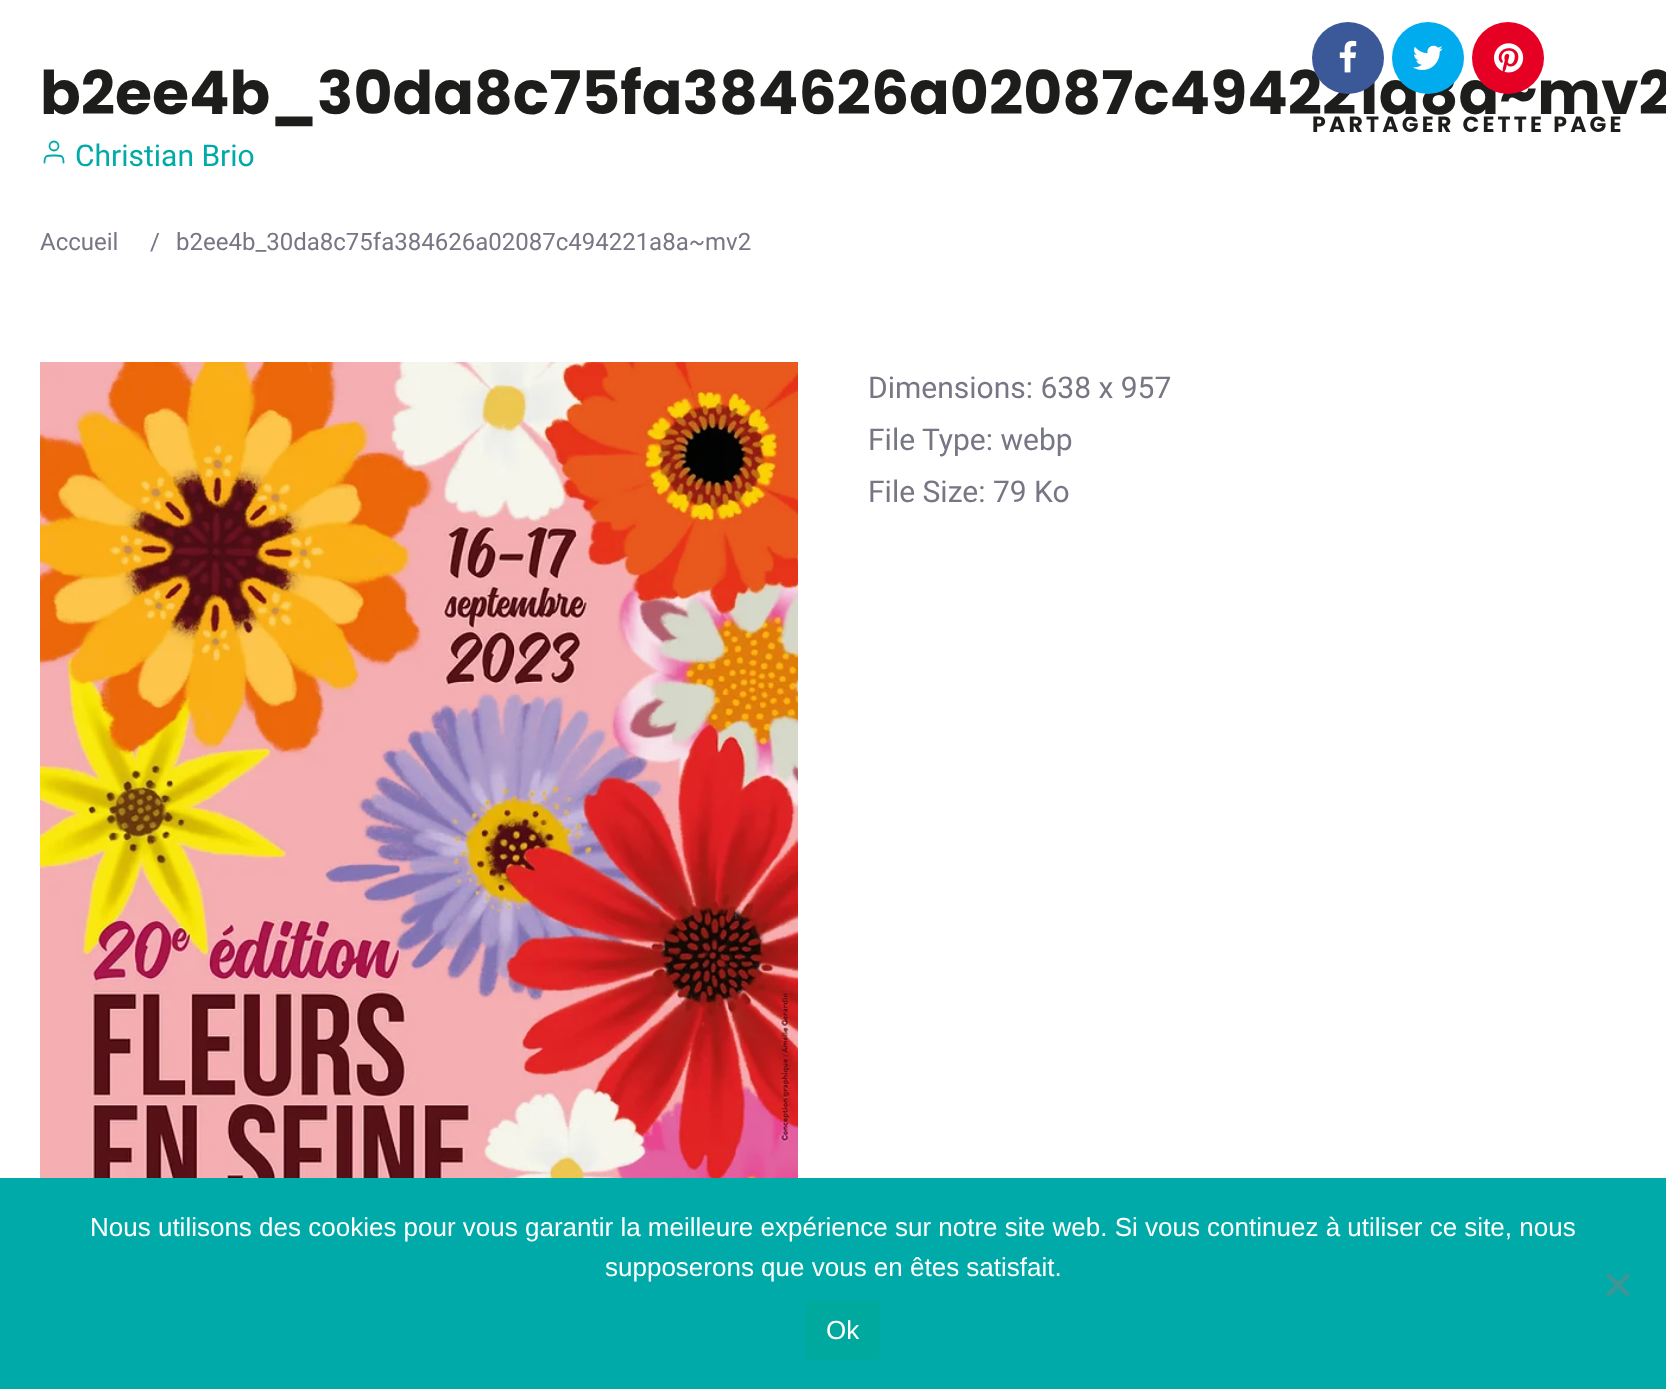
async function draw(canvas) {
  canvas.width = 1666;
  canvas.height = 1389;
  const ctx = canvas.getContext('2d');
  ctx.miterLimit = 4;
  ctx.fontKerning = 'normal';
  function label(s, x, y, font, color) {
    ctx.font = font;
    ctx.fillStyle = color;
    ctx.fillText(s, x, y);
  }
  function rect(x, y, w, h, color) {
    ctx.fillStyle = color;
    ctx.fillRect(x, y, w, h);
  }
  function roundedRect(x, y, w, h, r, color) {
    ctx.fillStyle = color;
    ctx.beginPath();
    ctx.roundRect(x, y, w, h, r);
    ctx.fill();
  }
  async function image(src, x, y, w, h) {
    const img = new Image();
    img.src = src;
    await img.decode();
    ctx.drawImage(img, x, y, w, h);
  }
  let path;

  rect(0, 0, 1666, 1389, '#fff');
  label('b2ee4b_30da8c75fa384626a02087c494221a8a~mv2', 40, 114, 'bold 60px Poppins', '#1d1d1b');
  label('Christian Brio', 75, 166, '30px Roboto', '#00aaa8');
  path = new Path2D('M63.5 162.5C63.5 155 60.5 155.5 54 155.5C47.5 155.5 44.5 155 44.5 162.5');
  ctx.strokeStyle = '#00aaa8';
  ctx.lineWidth = 1.8;
  ctx.lineCap = 'round';
  ctx.lineJoin = 'round';
  ctx.stroke(path);
  ctx.beginPath();
  ctx.arc(54, 146, 4.5, 0, 2 * Math.PI);
  ctx.stroke();
  label('Accueil', 40, 250, '24px Roboto', '#767685');
  label('/', 150, 250, '24px Roboto', '#767685');
  label('b2ee4b_30da8c75fa384626a02087c494221a8a~mv2', 176, 250, '24px Roboto', '#767685');
  ctx.fillStyle = '#3b5998';
  ctx.beginPath();
  ctx.arc(1348, 58, 36, 0, 2 * Math.PI);
  ctx.fill();
  await image('assets/img1.png', 1339, 40, 18, 33);
  ctx.fillStyle = '#00aced';
  ctx.beginPath();
  ctx.arc(1428, 58, 36, 0, 2 * Math.PI);
  ctx.fill();
  await image('assets/img2.png', 1413, 45, 30, 25);
  ctx.fillStyle = '#e60023';
  ctx.beginPath();
  ctx.arc(1508, 58, 36, 0, 2 * Math.PI);
  ctx.fill();
  await image('assets/img3.png', 1494, 43, 30, 30);
  ctx.letterSpacing = '3.25px';
  label('PARTAGER CETTE PAGE', 1312, 132, 'bold 22px Poppins', '#1d1d1b');
  await image('assets/img4.png', 40, 362, 758, 816);
  ctx.letterSpacing = '0px';
  label('Dimensions: 638 x 957', 868, 398, '30px Roboto', '#767685');
  label('File Type: webp', 868, 450, '30px Roboto', '#767685');
  label('File Size: 79 Ko', 868, 502, '30px Roboto', '#767685');
  rect(0, 1178, 1666, 211, '#00aaa8');
  label('Nous utilisons des cookies pour vous garantir la meilleure expérience sur notre site web. Si vous continuez à utiliser ce site, nous', 90, 1236, '26px Liberation Sans', '#fff');
  label('supposerons que vous en êtes satisfait.', 605, 1276, '26px Liberation Sans', '#fff');
  ctx.fillStyle = '#409594';
  path = new Path2D('M1627 1273L1630 1276L1609 1297L1606 1294Z');
  ctx.fill(path);
  path = new Path2D('M1606 1276L1609 1273L1630 1294L1627 1297Z');
  ctx.fill(path);
  roundedRect(806, 1300, 74, 60, 6, '#00a99d');
  label('Ok', 826, 1339, '26px Liberation Sans', '#fff');
}

draw(document.querySelector('canvas'));
